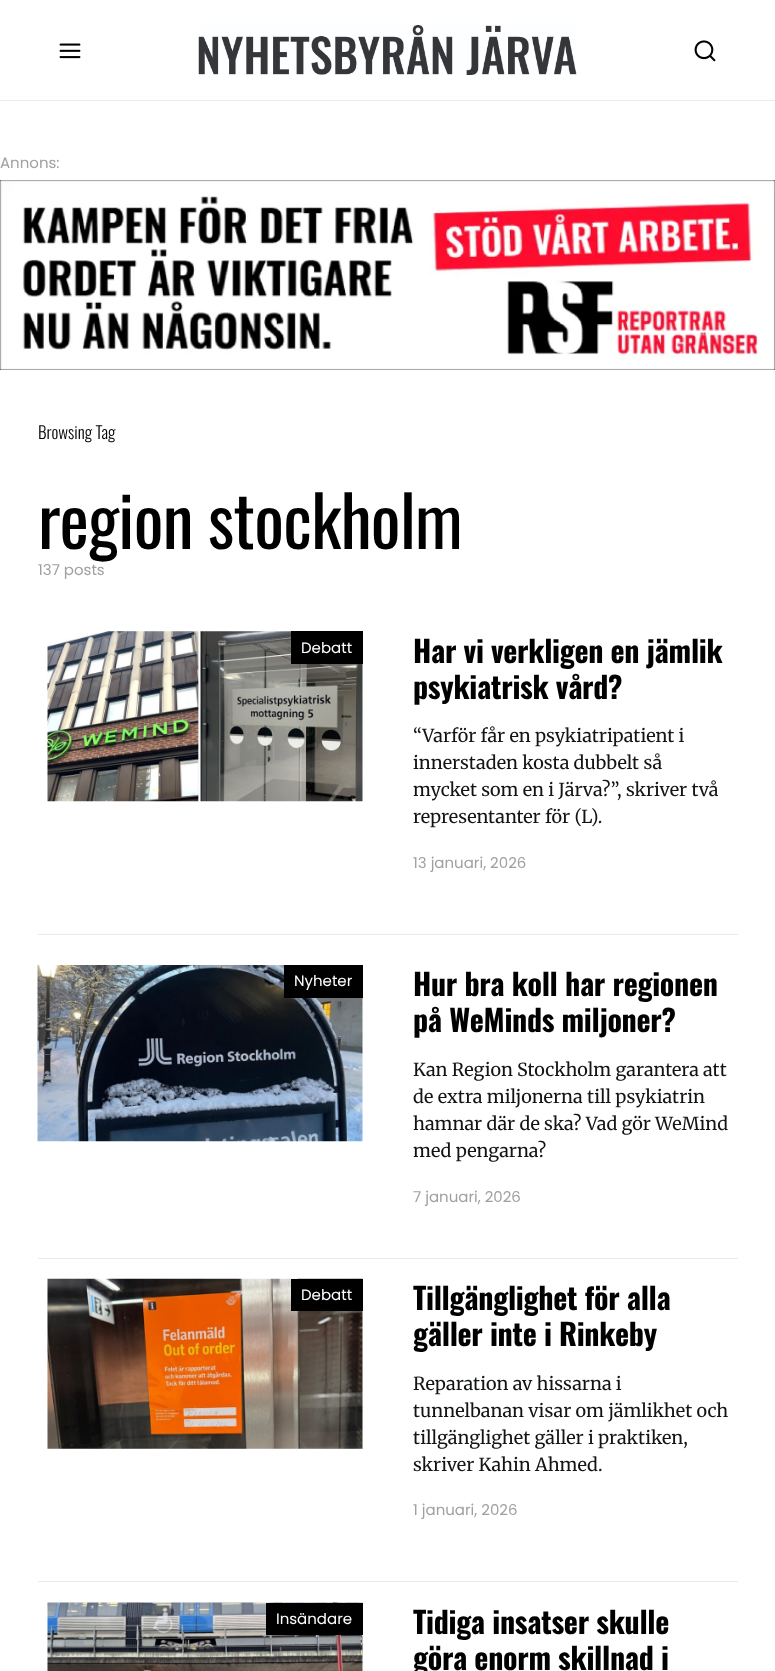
async function draw(canvas) {
  canvas.width = 775;
  canvas.height = 1671;
  const ctx = canvas.getContext('2d');
  ctx.miterLimit = 4;
  ctx.fontKerning = 'normal';
  function label(s, x, y, font, color) {
    ctx.font = font;
    ctx.fillStyle = color;
    ctx.fillText(s, x, y);
  }
  function rect(x, y, w, h, color) {
    ctx.fillStyle = color;
    ctx.fillRect(x, y, w, h);
  }
  async function image(src, x, y, w, h) {
    const img = new Image();
    img.src = src;
    await img.decode();
    ctx.drawImage(img, x, y, w, h);
  }

  rect(0, 0, 775, 1671, '#fff');
  rect(0, 100, 775, 1, '#e9ecef');
  await image('assets/img1.png', 59, 43, 22, 16);
  await image('assets/img2.png', 198, 25, 379, 50);
  await image('assets/img3.png', 694, 40, 22, 22);
  label('Annons:', 0, 168, '15px Poppins', '#a0a0a0');
  await image('assets/img4.png', 0, 180, 775, 190);
  label('Browsing Tag', 38, 439, '300 17px Oswald', '#000');
  ctx.letterSpacing = '-0.75px';
  label('region stockholm', 38, 549, '70px Oswald', '#000');
  ctx.letterSpacing = '0px';
  label('137 posts', 38, 575, '15px Poppins', '#a0a0a0');
  await image('assets/img5.png', 47, 631, 316, 171);
  rect(291, 631, 72, 33, '#000');
  label('Debatt', 301, 653, '15px Poppins', '#fff');
  ctx.letterSpacing = '-0.3px';
  label('Har vi verkligen en jämlik', 413, 663, 'bold 30px Oswald', '#000');
  label('psykiatrisk vård?', 413, 699, 'bold 30px Oswald', '#000');
  ctx.letterSpacing = '0px';
  label('“Varför får en psykiatripatient i', 413, 742, '18px Merriweather', '#121416');
  label('innerstaden kosta dubbelt så', 413, 769, '18px Merriweather', '#121416');
  label('mycket som en i Järva?”, skriver två', 413, 796, '18px Merriweather', '#121416');
  label('representanter för (L).', 413, 823, '18px Merriweather', '#121416');
  label('13 januari, 2026', 413, 868, '15px Poppins', '#a0a0a0');
  rect(38, 934, 700, 1, '#e9ecef');
  await image('assets/img6.png', 37, 965, 326, 177);
  rect(284, 965, 79, 33, '#000');
  label('Nyheter', 294, 986, '15px Poppins', '#fff');
  ctx.letterSpacing = '-0.3px';
  label('Hur bra koll har regionen', 413, 996, 'bold 30px Oswald', '#000');
  label('på WeMinds miljoner?', 413, 1032, 'bold 30px Oswald', '#000');
  ctx.letterSpacing = '0px';
  label('Kan Region Stockholm garantera att', 413, 1076, '18px Merriweather', '#121416');
  label('de extra miljonerna till psykiatrin', 413, 1103, '18px Merriweather', '#121416');
  label('hamnar där de ska? Vad gör WeMind', 413, 1130, '18px Merriweather', '#121416');
  label('med pengarna?', 413, 1157, '18px Merriweather', '#121416');
  label('7 januari, 2026', 413, 1202, '15px Poppins', '#a0a0a0');
  rect(38, 1258, 700, 1, '#e9ecef');
  await image('assets/img7.png', 47, 1278, 316, 171);
  rect(291, 1279, 72, 32, '#000');
  label('Debatt', 301, 1300, '15px Poppins', '#fff');
  ctx.letterSpacing = '-0.3px';
  label('Tillgänglighet för alla', 413, 1310, 'bold 30px Oswald', '#000');
  label('gäller inte i Rinkeby', 413, 1346, 'bold 30px Oswald', '#000');
  ctx.letterSpacing = '0px';
  label('Reparation av hissarna i', 413, 1390, '18px Merriweather', '#121416');
  label('tunnelbanan visar om jämlikhet och', 413, 1417, '18px Merriweather', '#121416');
  label('tillgänglighet gäller i praktiken,', 413, 1444, '18px Merriweather', '#121416');
  label('skriver Kahin Ahmed.', 413, 1471, '18px Merriweather', '#121416');
  label('1 januari, 2026', 413, 1515, '15px Poppins', '#a0a0a0');
  rect(38, 1581, 700, 1, '#e9ecef');
  await image('assets/img8.png', 47, 1602, 316, 69);
  rect(266, 1603, 97, 32, '#000');
  label('Insändare', 276, 1624, '15px Poppins', '#fff');
  ctx.letterSpacing = '-0.3px';
  label('Tidiga insatser skulle', 413, 1634, 'bold 30px Oswald', '#000');
  label('göra enorm skillnad i', 413, 1670, 'bold 30px Oswald', '#000');
}

draw(document.querySelector('canvas'));
